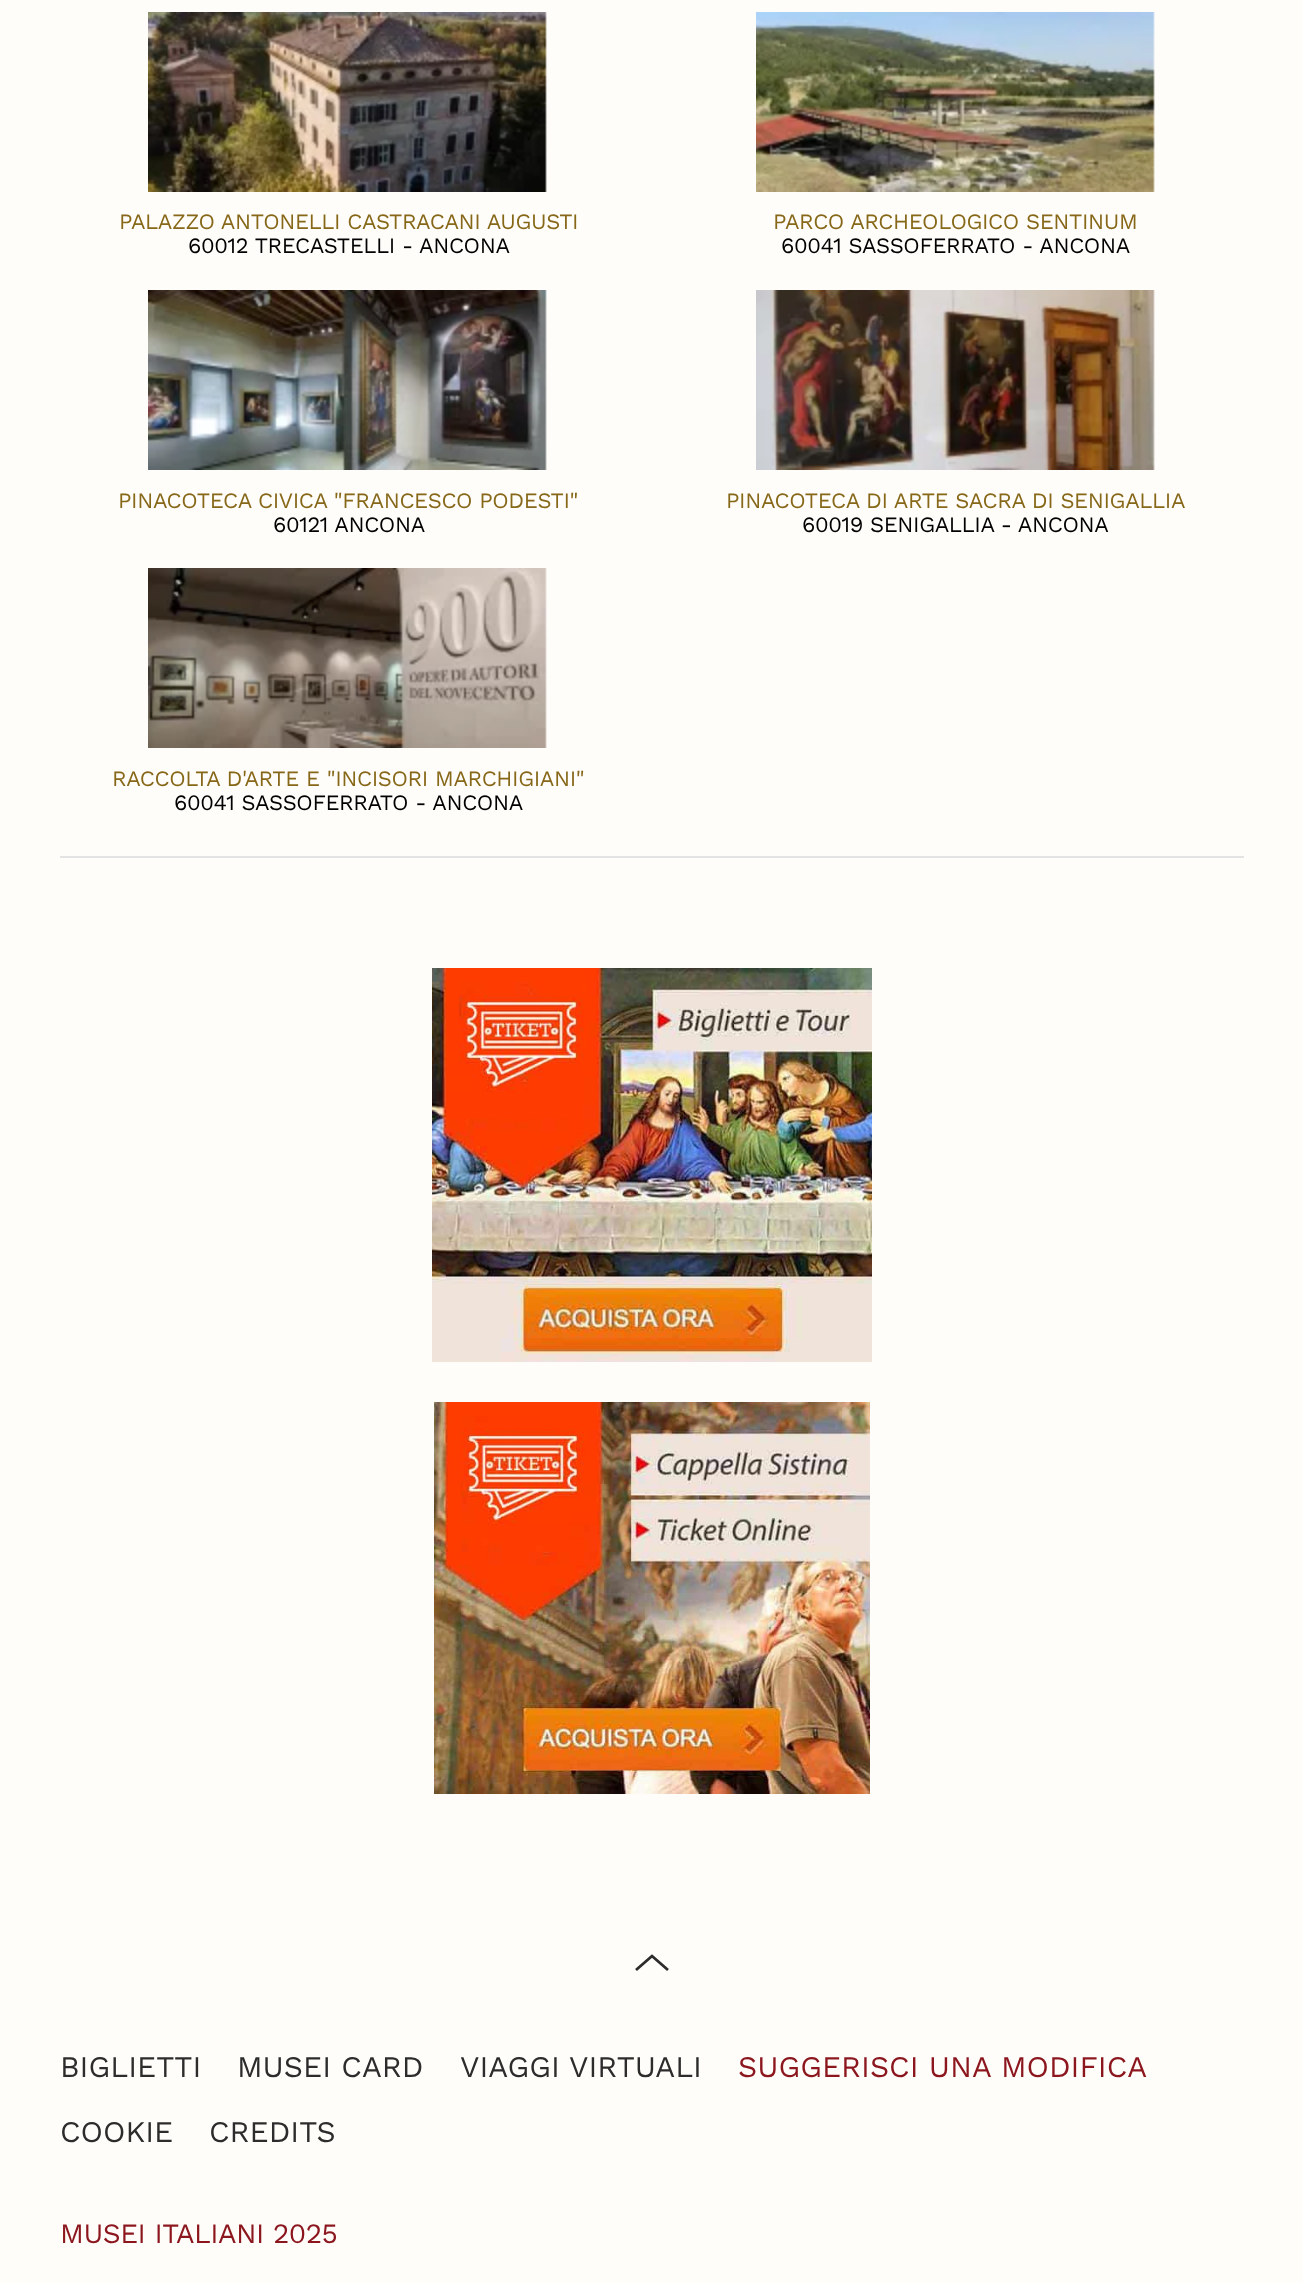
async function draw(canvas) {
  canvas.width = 1303;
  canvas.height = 2283;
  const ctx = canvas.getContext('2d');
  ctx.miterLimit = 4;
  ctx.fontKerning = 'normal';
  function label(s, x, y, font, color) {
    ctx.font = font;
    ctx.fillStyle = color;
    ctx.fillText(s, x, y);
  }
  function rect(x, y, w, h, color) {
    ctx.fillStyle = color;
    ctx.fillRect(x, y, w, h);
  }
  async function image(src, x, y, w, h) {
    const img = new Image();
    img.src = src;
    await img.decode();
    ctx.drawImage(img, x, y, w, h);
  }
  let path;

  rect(0, 0, 1303, 2283, '#fffdfa');
  await image('assets/img1.png', 148, 12, 399, 180);
  ctx.letterSpacing = '-0.4px';
  label('PALAZZO ANTONELLI CASTRACANI AUGUSTI', 119, 229, '22px Work Sans', '#876819');
  label('60012 TRECASTELLI - ANCONA', 188, 253, '22px Work Sans', '#000');
  await image('assets/img2.png', 756, 12, 399, 180);
  label('PARCO ARCHEOLOGICO SENTINUM', 773, 229, '22px Work Sans', '#876819');
  label('60041 SASSOFERRATO - ANCONA', 781, 253, '22px Work Sans', '#000');
  await image('assets/img3.png', 148, 290, 399, 180);
  label('PINACOTECA CIVICA "FRANCESCO PODESTI"', 118, 508, '22px Work Sans', '#876819');
  label('60121 ANCONA', 273, 532, '22px Work Sans', '#000');
  await image('assets/img4.png', 756, 290, 399, 180);
  label('PINACOTECA DI ARTE SACRA DI SENIGALLIA', 726, 508, '22px Work Sans', '#876819');
  label('60019 SENIGALLIA - ANCONA', 802, 532, '22px Work Sans', '#000');
  await image('assets/img5.png', 148, 568, 399, 180);
  label('RACCOLTA D\'ARTE E "INCISORI MARCHIGIANI"', 112, 786, '22px Work Sans', '#876819');
  label('60041 SASSOFERRATO - ANCONA', 174, 810, '22px Work Sans', '#000');
  rect(60, 856, 1184, 2, '#e3e3e3');
  await image('assets/img6.png', 432, 968, 440, 394);
  await image('assets/img7.png', 434, 1402, 436, 392);
  path = new Path2D('M636 1970L652 1956L668 1970');
  ctx.strokeStyle = '#2c2c2c';
  ctx.lineWidth = 2.8;
  ctx.stroke(path);
  ctx.letterSpacing = '0px';
  label('BIGLIETTI', 60, 2077, '30px Work Sans', '#2c2c2c');
  label('MUSEI CARD', 237, 2077, '30px Work Sans', '#2c2c2c');
  label('VIAGGI VIRTUALI', 460, 2077, '30px Work Sans', '#2c2c2c');
  label('SUGGERISCI UNA MODIFICA', 738, 2077, '30px Work Sans', '#8c161e');
  label('COOKIE', 60, 2142, '30px Work Sans', '#2c2c2c');
  label('CREDITS', 209, 2142, '30px Work Sans', '#2c2c2c');
  ctx.letterSpacing = '-0.5px';
  label('MUSEI ITALIANI 2025', 60, 2243, '28px Work Sans', '#8c161e');
}

draw(document.querySelector('canvas'));
